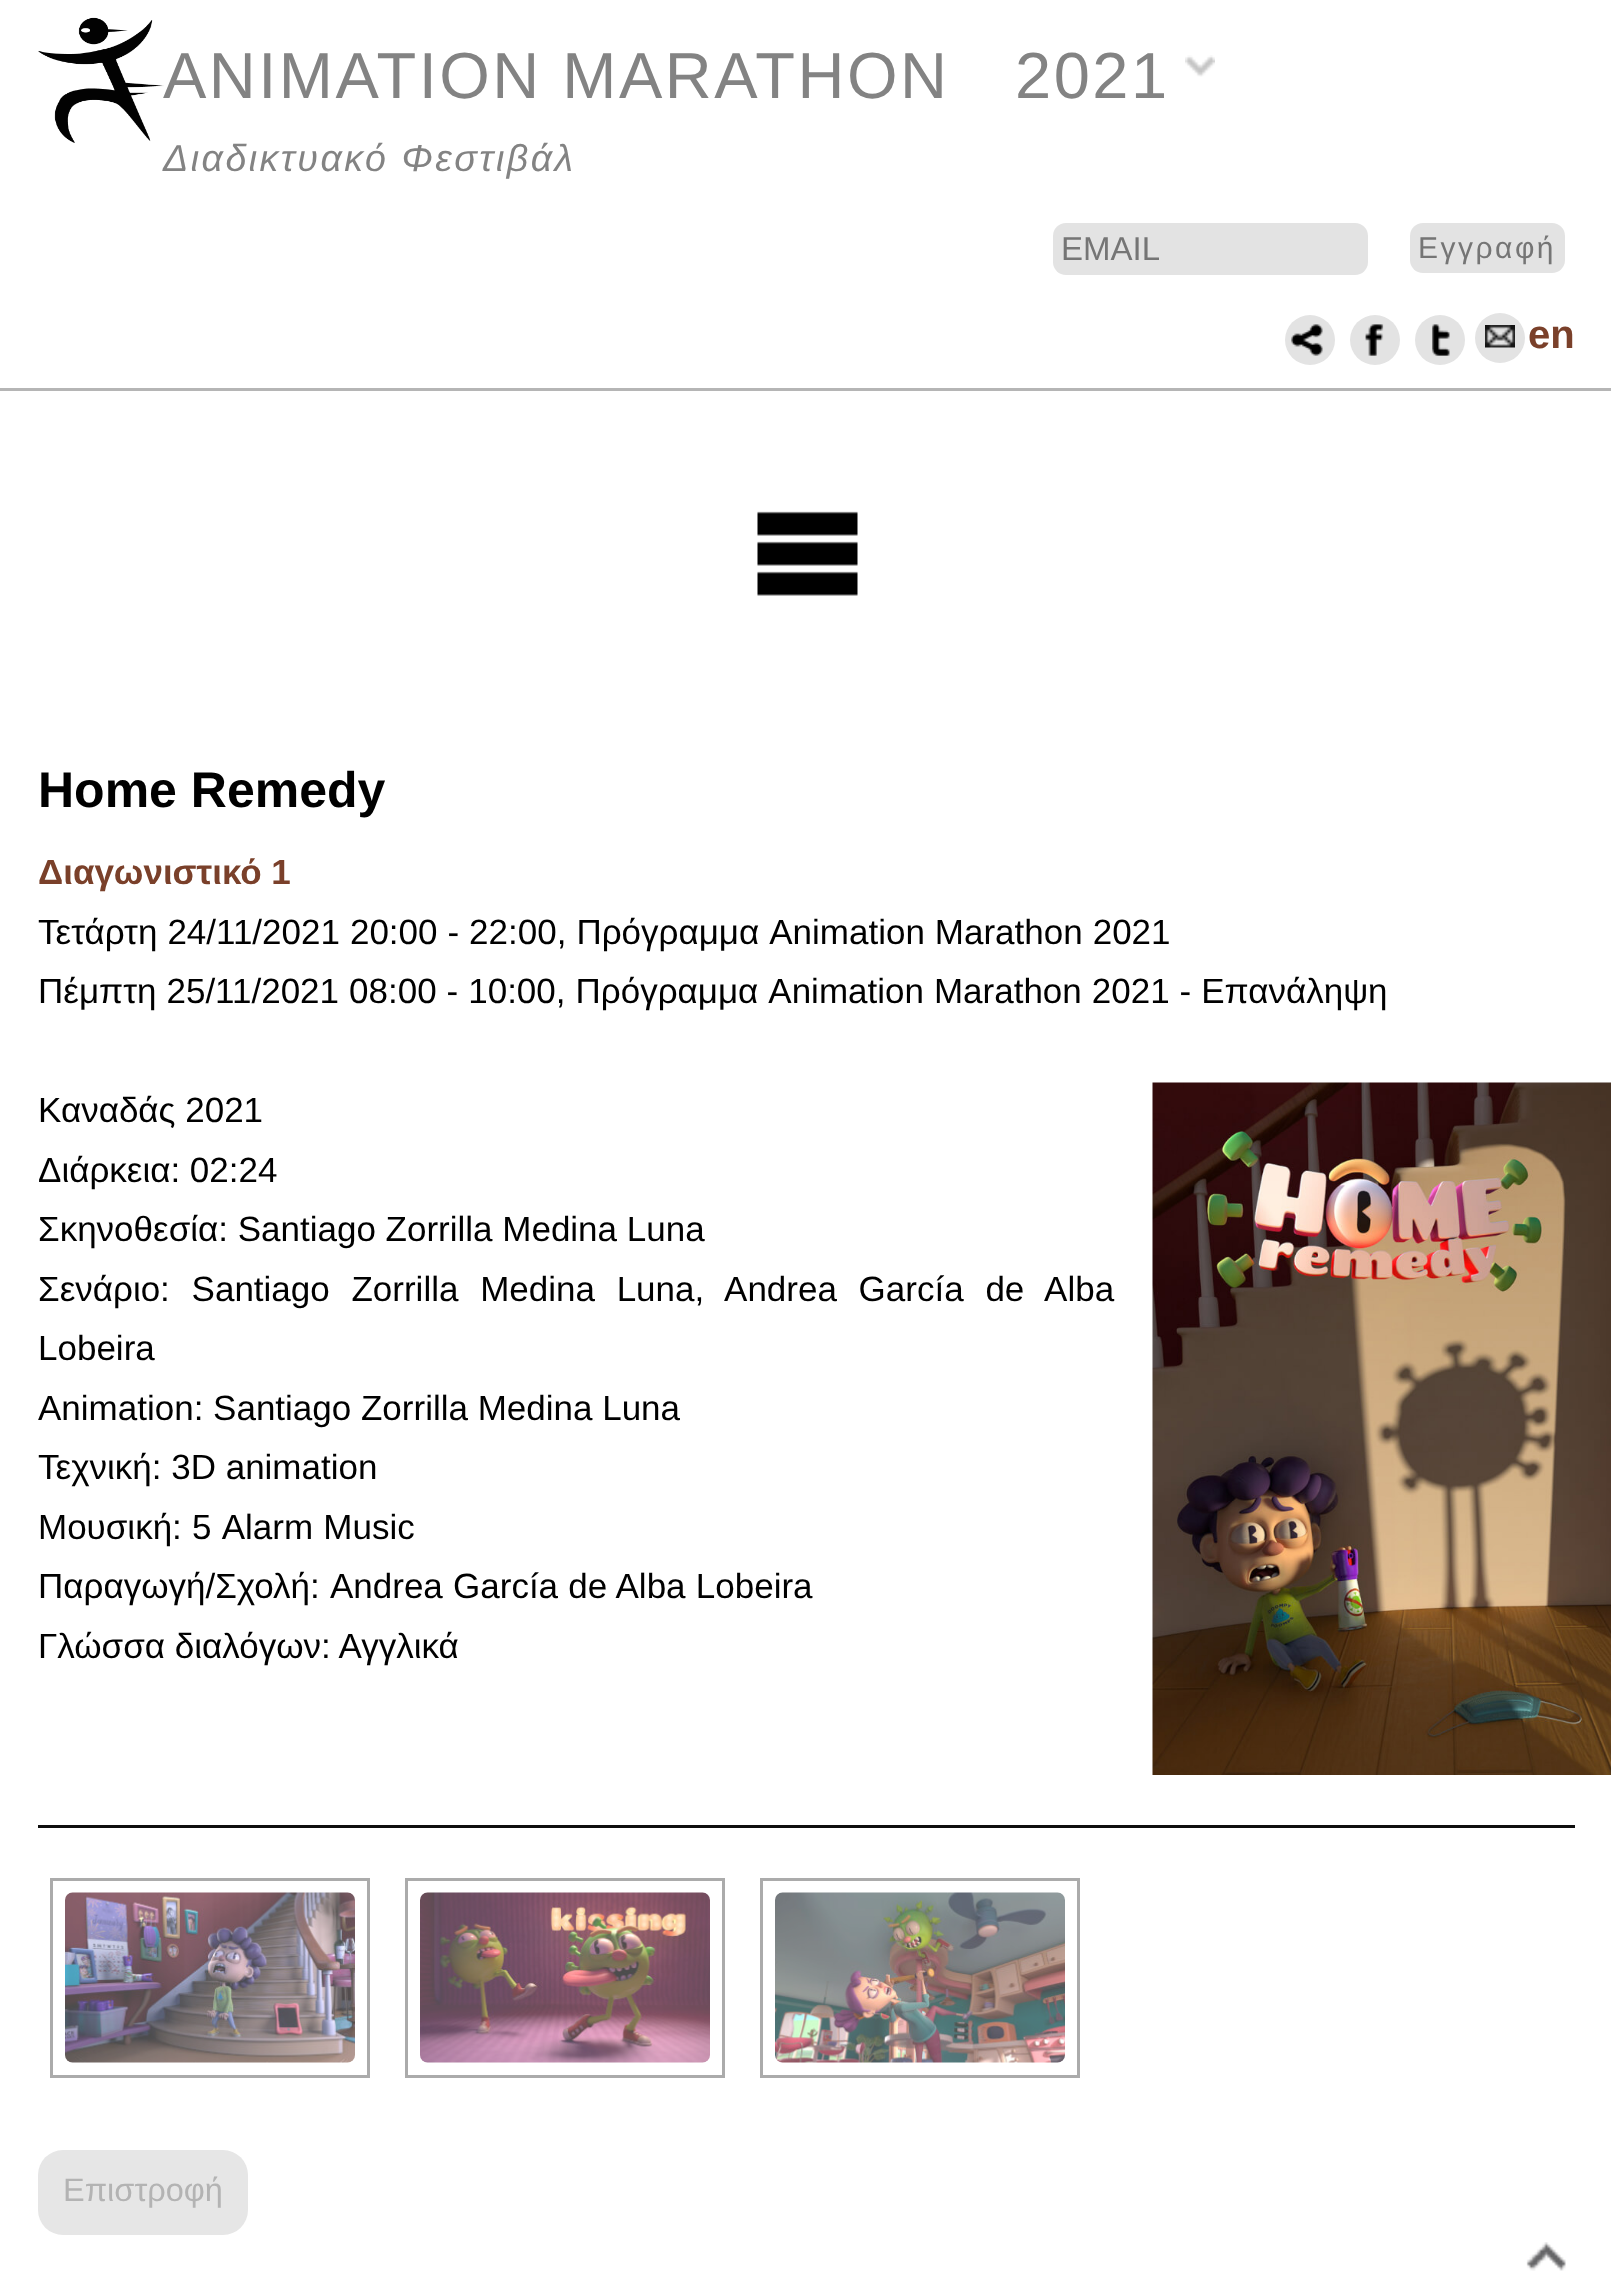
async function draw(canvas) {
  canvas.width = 1611;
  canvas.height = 2295;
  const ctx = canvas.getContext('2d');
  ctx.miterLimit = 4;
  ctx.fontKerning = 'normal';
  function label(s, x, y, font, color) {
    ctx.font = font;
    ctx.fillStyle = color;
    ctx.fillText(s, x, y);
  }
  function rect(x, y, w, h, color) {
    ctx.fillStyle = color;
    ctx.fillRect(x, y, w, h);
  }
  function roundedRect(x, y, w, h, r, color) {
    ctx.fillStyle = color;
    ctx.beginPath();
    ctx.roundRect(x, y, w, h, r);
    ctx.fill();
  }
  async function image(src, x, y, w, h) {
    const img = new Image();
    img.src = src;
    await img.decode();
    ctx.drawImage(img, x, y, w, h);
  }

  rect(0, 0, 1611, 2295, '#fff');
  await image('assets/img1.png', 38, 17, 126, 126);
  ctx.letterSpacing = '2.5px';
  label('ANIMATION MARATHON', 163, 98, '65px Liberation Sans', '#838383');
  await image('assets/img2.png', 1185, 55, 30, 22);
  label('2021', 1015, 98, '65px Liberation Sans', '#838383');
  label('Διαδικτυακό Φεστιβάλ', 163, 171, 'italic 37.5px Liberation Sans', '#838383');
  roundedRect(1053, 223, 315, 52, 13, '#e3e3e3');
  ctx.letterSpacing = '0px';
  label('EMAIL', 1061, 260, '33px Liberation Sans', '#757575');
  roundedRect(1410, 223, 155, 50, 13, '#e3e3e3');
  ctx.letterSpacing = '2.5px';
  label('Εγγραφή', 1418, 258, '30px Liberation Sans', '#757575');
  ctx.fillStyle = '#e3e3e3';
  ctx.beginPath();
  ctx.arc(1310, 340, 25, 0, 2 * Math.PI);
  ctx.fill();
  await image('assets/img3.png', 1291, 324, 32, 32);
  ctx.beginPath();
  ctx.arc(1375, 340, 25, 0, 2 * Math.PI);
  ctx.fill();
  await image('assets/img4.png', 1365, 324, 19, 32);
  ctx.beginPath();
  ctx.arc(1440, 340, 25, 0, 2 * Math.PI);
  ctx.fill();
  await image('assets/img5.png', 1432, 324, 18, 32);
  ctx.beginPath();
  ctx.arc(1500, 338, 25, 0, 2 * Math.PI);
  ctx.fill();
  await image('assets/img6.png', 1485, 325, 30, 23);
  ctx.letterSpacing = '0px';
  label('en', 1528, 348, 'bold 40px Liberation Sans', '#7a402a');
  rect(0, 388, 1611, 3, '#b5b5b5');
  await image('assets/img7.png', 757, 511, 101, 85);
  label('Home Remedy', 38, 807, 'bold 50px Liberation Sans', '#000');
  label('Διαγωνιστικό 1', 38, 884, 'bold 35px Liberation Sans', '#7a402a');
  ctx.wordSpacing = '0.25px';
  label('Τετάρτη 24/11/2021 20:00 - 22:00, Πρόγραμμα Animation Marathon 2021', 38, 944, '35px Liberation Sans', '#000');
  label('Πέμπτη 25/11/2021 08:00 - 10:00, Πρόγραμμα Animation Marathon 2021 - Επανάληψη', 38, 1003, '35px Liberation Sans', '#000');
  ctx.wordSpacing = '0px';
  label('Καναδάς 2021', 38, 1122, '35px Liberation Sans', '#000');
  await image('assets/img8.png', 1152, 1082, 459, 693);
  label('Διάρκεια: 02:24', 38, 1182, '35px Liberation Sans', '#000');
  label('Σκηνοθεσία: Santiago Zorrilla Medina Luna', 38, 1241, '35px Liberation Sans', '#000');
  ctx.wordSpacing = '12px';
  label('Σενάριο: Santiago Zorrilla Medina Luna, Andrea García de Alba', 38, 1301, '35px Liberation Sans', '#000');
  ctx.wordSpacing = '0px';
  label('Lobeira', 38, 1360, '35px Liberation Sans', '#000');
  label('Animation: Santiago Zorrilla Medina Luna', 38, 1420, '35px Liberation Sans', '#000');
  label('Τεχνική: 3D animation', 38, 1479, '35px Liberation Sans', '#000');
  ctx.wordSpacing = '0.5px';
  label('Μουσική: 5 Alarm Music', 38, 1539, '35px Liberation Sans', '#000');
  label('Παραγωγή/Σχολή: Andrea García de Alba Lobeira', 38, 1598, '35px Liberation Sans', '#000');
  ctx.wordSpacing = '0px';
  label('Γλώσσα διαλόγων: Αγγλικά', 38, 1658, '35px Liberation Sans', '#000');
  rect(38, 1825, 1537, 3, '#0e0e0e');
  ctx.strokeStyle = '#ababab';
  ctx.lineWidth = 3;
  ctx.strokeRect(51.5, 1879.5, 317, 197);
  await image('assets/img9.png', 65, 1892, 290, 171);
  ctx.strokeRect(406.5, 1879.5, 317, 197);
  await image('assets/img10.png', 420, 1892, 290, 171);
  ctx.strokeRect(761.5, 1879.5, 317, 197);
  await image('assets/img11.png', 775, 1892, 290, 171);
  roundedRect(38, 2150, 210, 85, 25, '#e6e6e6');
  label('Επιστροφή', 63, 2201, '32.5px Liberation Sans', '#b3b3b3');
  await image('assets/img12.png', 1526, 2242, 40, 29);
}

draw(document.querySelector('canvas'));
